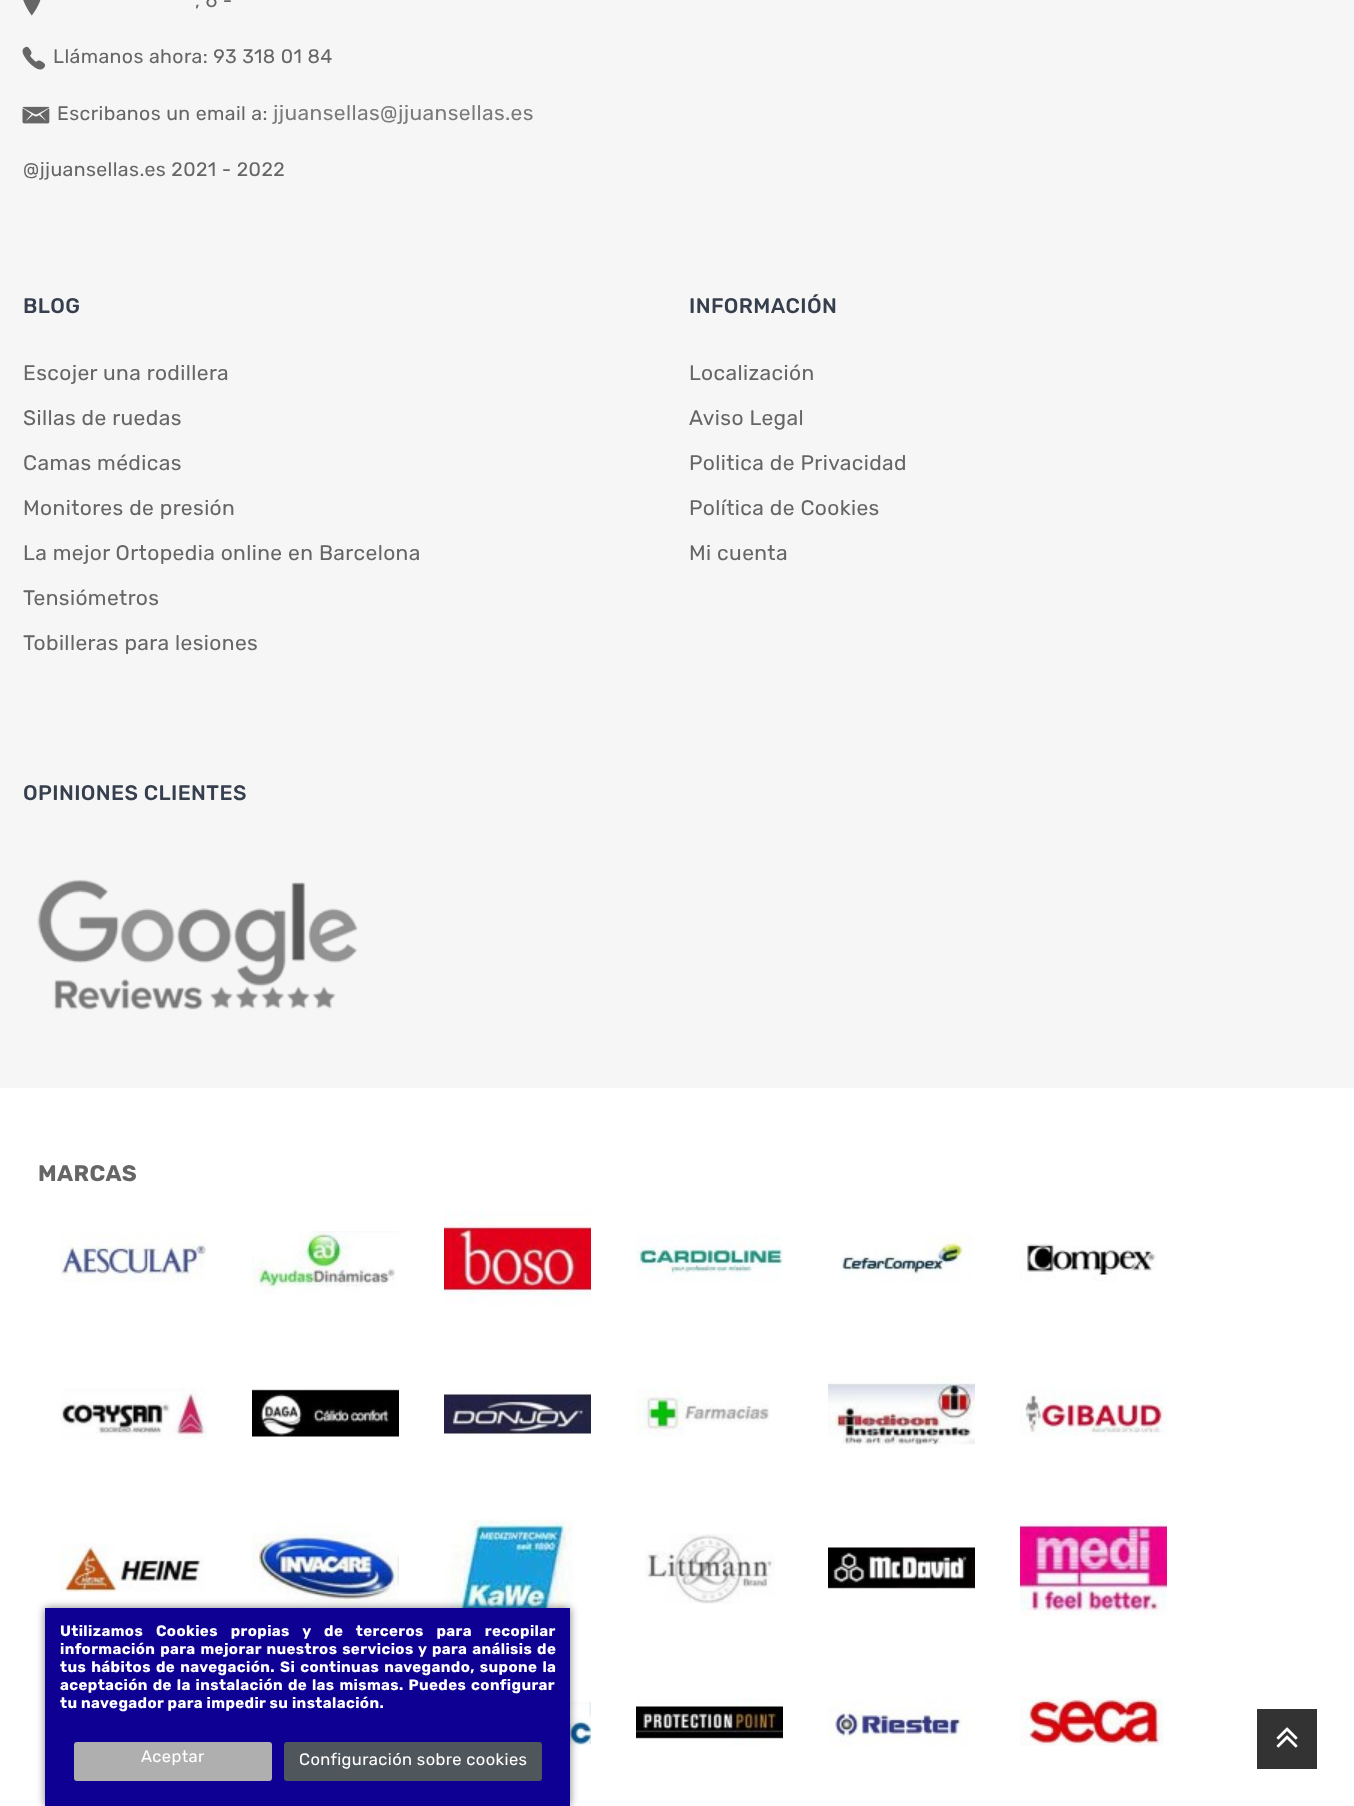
async function draw(canvas) {
  canvas.width = 1354;
  canvas.height = 1806;
  const ctx = canvas.getContext('2d');
  ctx.miterLimit = 4;
  ctx.fontKerning = 'normal';
  function label(s, x, y, font, color) {
    ctx.font = font;
    ctx.fillStyle = color;
    ctx.fillText(s, x, y);
  }
  function rect(x, y, w, h, color) {
    ctx.fillStyle = color;
    ctx.fillRect(x, y, w, h);
  }
  function roundedRect(x, y, w, h, r, color) {
    ctx.fillStyle = color;
    ctx.beginPath();
    ctx.roundRect(x, y, w, h, r);
    ctx.fill();
  }
  async function image(src, x, y, w, h) {
    const img = new Image();
    img.src = src;
    await img.decode();
    ctx.drawImage(img, x, y, w, h);
  }

  rect(0, 0, 1354, 1806, '#fff');
  rect(0, 0, 1354, 1088, '#f7f6f6');
  await image('assets/img1.png', 23, 0, 18, 16);
  ctx.letterSpacing = '0.4px';
  label(', 6 -', 195, 7, '19.5px Rubik', '#666');
  await image('assets/img2.png', 22, 46, 24, 24);
  label('Llámanos ahora: 93 318 01 84', 53, 63, '19.5px Rubik', '#666');
  await image('assets/img3.png', 22, 106, 28, 18);
  label('Escribanos un email a:', 57, 120, '19.5px Rubik', '#666');
  label('jjuansellas@jjuansellas.es', 273, 120, '21px Rubik', '#7a7a7a');
  label('@jjuansellas.es 2021 - 2022', 23, 176, '19.5px Rubik', '#666');
  label('BLOG', 23, 313, '500 21px Rubik', '#363f4d');
  label('Escojer una rodillera', 23, 380, '21px Rubik', '#666');
  label('Sillas de ruedas', 23, 425, '21px Rubik', '#666');
  label('Camas médicas', 23, 470, '21px Rubik', '#666');
  label('Monitores de presión', 23, 515, '21px Rubik', '#666');
  label('La mejor Ortopedia online en Barcelona', 23, 560, '21px Rubik', '#666');
  label('Tensiómetros', 23, 605, '21px Rubik', '#666');
  label('Tobilleras para lesiones', 23, 650, '21px Rubik', '#666');
  label('INFORMACIÓN', 689, 313, '500 21px Rubik', '#363f4d');
  label('Localización', 689, 380, '21px Rubik', '#666');
  label('Aviso Legal', 689, 425, '21px Rubik', '#666');
  label('Politica de Privacidad', 689, 470, '21px Rubik', '#666');
  label('Política de Cookies', 689, 515, '21px Rubik', '#666');
  label('Mi cuenta', 689, 560, '21px Rubik', '#666');
  label('OPINIONES CLIENTES', 23, 800, '500 21px Rubik', '#363f4d');
  await image('assets/img4.png', 37, 879, 321, 131);
  label('MARCAS', 38, 1181, 'bold 22.5px Rubik', '#666');
  await image('assets/img5.png', 60, 1233, 147, 50);
  await image('assets/img6.png', 252, 1231, 147, 63);
  await image('assets/img7.png', 444, 1210, 147, 96);
  await image('assets/img8.png', 636, 1234, 147, 48);
  await image('assets/img9.png', 840, 1233, 132, 49);
  await image('assets/img10.png', 1020, 1243, 137, 39);
  await image('assets/img11.png', 60, 1388, 147, 52);
  await image('assets/img12.png', 252, 1389, 147, 48);
  await image('assets/img13.png', 444, 1388, 147, 49);
  await image('assets/img14.png', 636, 1388, 134, 49);
  await image('assets/img15.png', 828, 1376, 147, 72);
  await image('assets/img16.png', 1020, 1388, 147, 49);
  await image('assets/img17.png', 60, 1543, 144, 50);
  await image('assets/img18.png', 252, 1522, 147, 86);
  await image('assets/img19.png', 444, 1518, 130, 98);
  await image('assets/img20.png', 645, 1533, 130, 71);
  await image('assets/img21.png', 828, 1547, 147, 43);
  await image('assets/img22.png', 1020, 1519, 147, 97);
  await image('assets/img23.png', 570, 1697, 21, 50);
  await image('assets/img24.png', 636, 1698, 147, 48);
  await image('assets/img25.png', 828, 1698, 141, 48);
  await image('assets/img26.png', 1020, 1697, 144, 49);
  ctx.fillStyle = '#00000080';
  ctx.filter = 'blur(4px)';
  ctx.beginPath();
  ctx.rect(45, 1608, 525, 198);
  ctx.fill();
  ctx.filter = 'none';
  rect(45, 1608, 525, 198, '#0e0093');
  ctx.wordSpacing = '9.25px';
  label('Utilizamos Cookies propias y de terceros para recopilar', 60, 1636, 'bold 15px Rubik', '#fff');
  ctx.wordSpacing = '1.25px';
  label('información para mejorar nuestros servicios y para análisis de', 60, 1654, 'bold 15px Rubik', '#fff');
  ctx.wordSpacing = '1.5px';
  label('tus hábitos de navegación. Si continuas navegando, supone la', 60, 1672, 'bold 15px Rubik', '#fff');
  ctx.wordSpacing = '1.25px';
  label('aceptación de la instalación de las mismas. Puedes configurar', 60, 1690, 'bold 15px Rubik', '#fff');
  ctx.wordSpacing = '0px';
  label('tu navegador para impedir su instalación.', 60, 1708, 'bold 15px Rubik', '#fff');
  roundedRect(74, 1742, 198, 39, 3, '#afafaf');
  label('Aceptar', 141, 1762, '16.5px Rubik', '#fff');
  roundedRect(284, 1742, 258, 39, 3, '#50575c');
  label('Configuración sobre cookies', 299, 1765, '16.5px Rubik', '#fff');
  rect(1257, 1709, 60, 60, '#333');
  await image('assets/img27.png', 1276, 1727, 22, 21);
}

draw(document.querySelector('canvas'));
